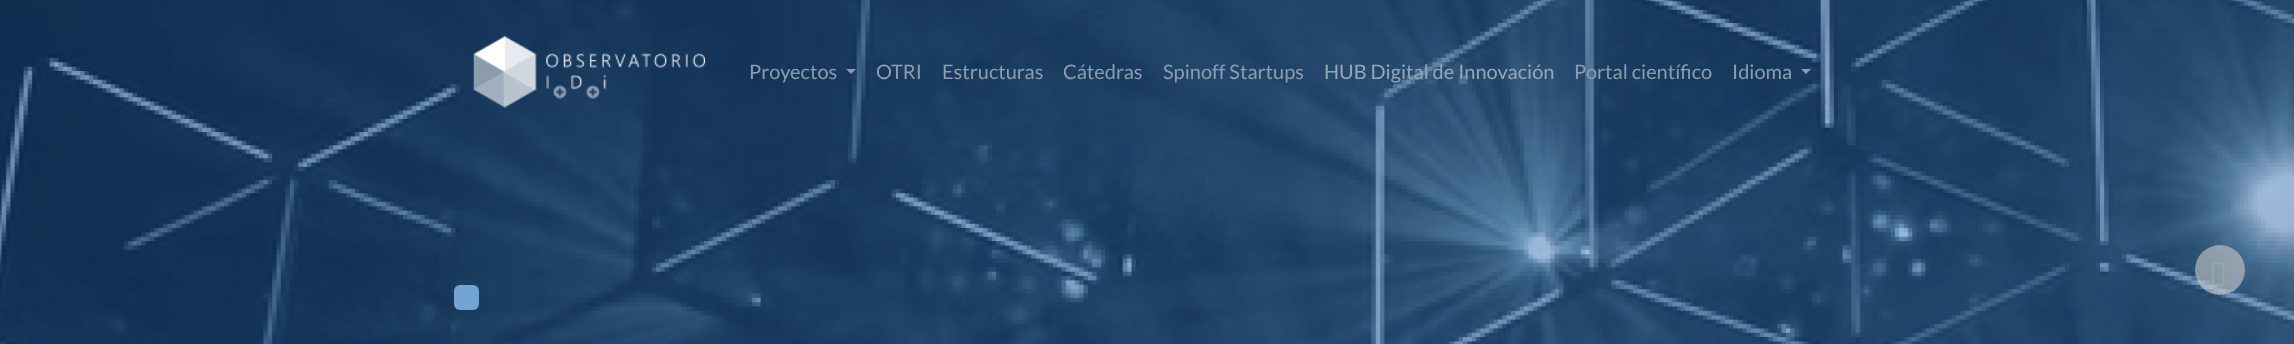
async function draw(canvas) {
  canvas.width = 2294;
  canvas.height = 344;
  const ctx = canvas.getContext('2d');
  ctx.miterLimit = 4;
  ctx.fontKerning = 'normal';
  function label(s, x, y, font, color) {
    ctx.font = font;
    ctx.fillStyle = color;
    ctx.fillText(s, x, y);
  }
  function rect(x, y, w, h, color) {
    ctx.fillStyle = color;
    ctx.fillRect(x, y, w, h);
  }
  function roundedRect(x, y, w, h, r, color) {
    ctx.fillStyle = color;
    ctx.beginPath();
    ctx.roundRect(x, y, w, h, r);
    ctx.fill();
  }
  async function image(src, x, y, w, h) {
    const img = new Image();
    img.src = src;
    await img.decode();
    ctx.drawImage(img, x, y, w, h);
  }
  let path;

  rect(0, 0, 2294, 344, '#fff');
  await image('assets/img1.png', 0, 0, 2294, 344);
  roundedRect(454, 285, 25, 25, 6, '#74a4d4');
  await image('assets/img2.png', 473, 36, 232, 72);
  label('Proyectos', 749, 79, '20px Lato', '#8c9daf');
  ctx.fillStyle = '#ffffff80';
  path = new Path2D('M846 69H856L851 74Z');
  ctx.fill(path);
  label('OTRI', 876, 79, '20px Lato', '#8c9daf');
  label('Estructuras', 942, 79, '20px Lato', '#8c9daf');
  label('Cátedras', 1063, 79, '20px Lato', '#8c9daf');
  label('Spinoff Startups', 1163, 79, '20px Lato', '#8c9daf');
  label('HUB Digital de Innovación', 1324, 79, '20px Lato', '#95a7b9');
  label('Portal científico', 1574, 79, '20px Lato', '#8c9daf');
  label('Idioma', 1732, 79, '20px Lato', '#8c9daf');
  ctx.fillStyle = '#ffffff80';
  path = new Path2D('M1801 69H1811L1806 74Z');
  ctx.fill(path);
  ctx.fillStyle = '#cccccc99';
  ctx.beginPath();
  ctx.arc(2220, 270, 25, 0, 2 * Math.PI);
  ctx.fill();
  ctx.fillStyle = '#8fbc8f99';
  path = new Path2D('M2211.5 285V262.5H2224.5V285ZM2213.5 283.5H2223V264.5H2213.5Z');
  ctx.fill(path);
}

draw(document.querySelector('canvas'));
